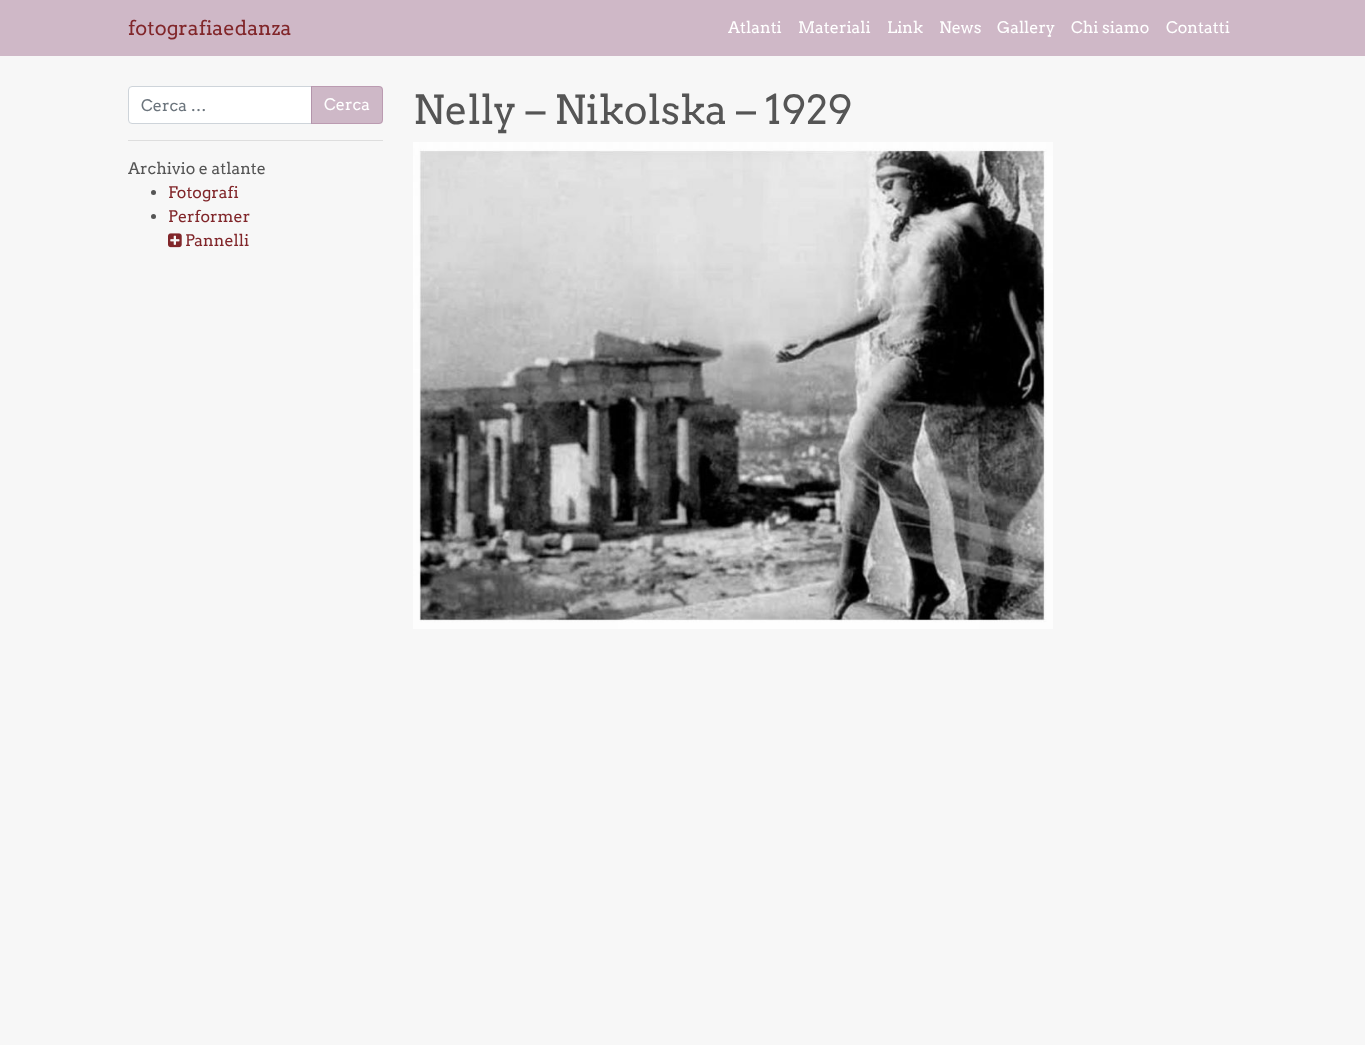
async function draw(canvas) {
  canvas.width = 1365;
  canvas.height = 1045;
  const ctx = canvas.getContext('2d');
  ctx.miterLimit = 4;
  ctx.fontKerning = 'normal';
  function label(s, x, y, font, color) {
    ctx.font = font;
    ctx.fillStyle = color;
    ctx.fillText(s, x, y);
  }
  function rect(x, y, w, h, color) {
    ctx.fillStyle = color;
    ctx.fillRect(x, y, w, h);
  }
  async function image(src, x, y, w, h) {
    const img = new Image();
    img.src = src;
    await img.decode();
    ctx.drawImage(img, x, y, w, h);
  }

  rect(0, 0, 1365, 1045, '#f7f7f7');
  rect(0, 0, 1365, 56, '#cfb8c7');
  label('fotografiaedanza', 128, 35, '20px Arvo', '#81262a');
  label('Atlanti', 728, 33, '16px Arvo', '#fff');
  label('Materiali', 798, 33, '16px Arvo', '#fff');
  label('Link', 887, 33, '16px Arvo', '#fff');
  label('News', 939, 33, '16px Arvo', '#fff');
  label('Gallery', 997, 33, '16px Arvo', '#fff');
  label('Chi siamo', 1071, 33, '16px Arvo', '#fff');
  label('Contatti', 1166, 33, '16px Arvo', '#fff');
  ctx.beginPath();
  ctx.roundRect(128.5, 86.5, 183, 37, [3.5, 0, 0, 3.5]);
  ctx.fill();
  ctx.strokeStyle = '#ced4da';
  ctx.stroke();
  label('Cerca …', 141, 111, '16px Arvo', '#6c757d');
  ctx.fillStyle = '#ac839e8a';
  ctx.beginPath();
  ctx.roundRect(311, 86, 72, 38, [0, 4, 4, 0]);
  ctx.fill();
  ctx.beginPath();
  ctx.roundRect(311.5, 86.5, 71, 37, [0, 3.5, 3.5, 0]);
  ctx.strokeStyle = '#ac839e8a';
  ctx.stroke();
  label('Cerca', 324, 110, '16px Arvo', '#fff');
  rect(128, 140, 255, 1, '#dedede');
  label('Archivio e atlante', 128, 174, '16px Arvo', '#555');
  ctx.beginPath();
  ctx.arc(153.5, 192.5, 2.5, 0, 2 * Math.PI);
  ctx.fill();
  label('Fotografi', 168, 198, '16px Arvo', '#81262a');
  ctx.fillStyle = '#555';
  ctx.beginPath();
  ctx.arc(153.5, 216.5, 2.5, 0, 2 * Math.PI);
  ctx.fill();
  label('Performer', 168, 222, '16px Arvo', '#81262a');
  await image('assets/img1.png', 168, 233, 14, 15);
  label('Pannelli', 185, 246, '16px Arvo', '#81262a');
  label('Nelly – Nikolska – 1929', 413, 124, '40px Arvo', '#555');
  await image('assets/img2.png', 413, 142, 640, 487);
}

draw(document.querySelector('canvas'));
